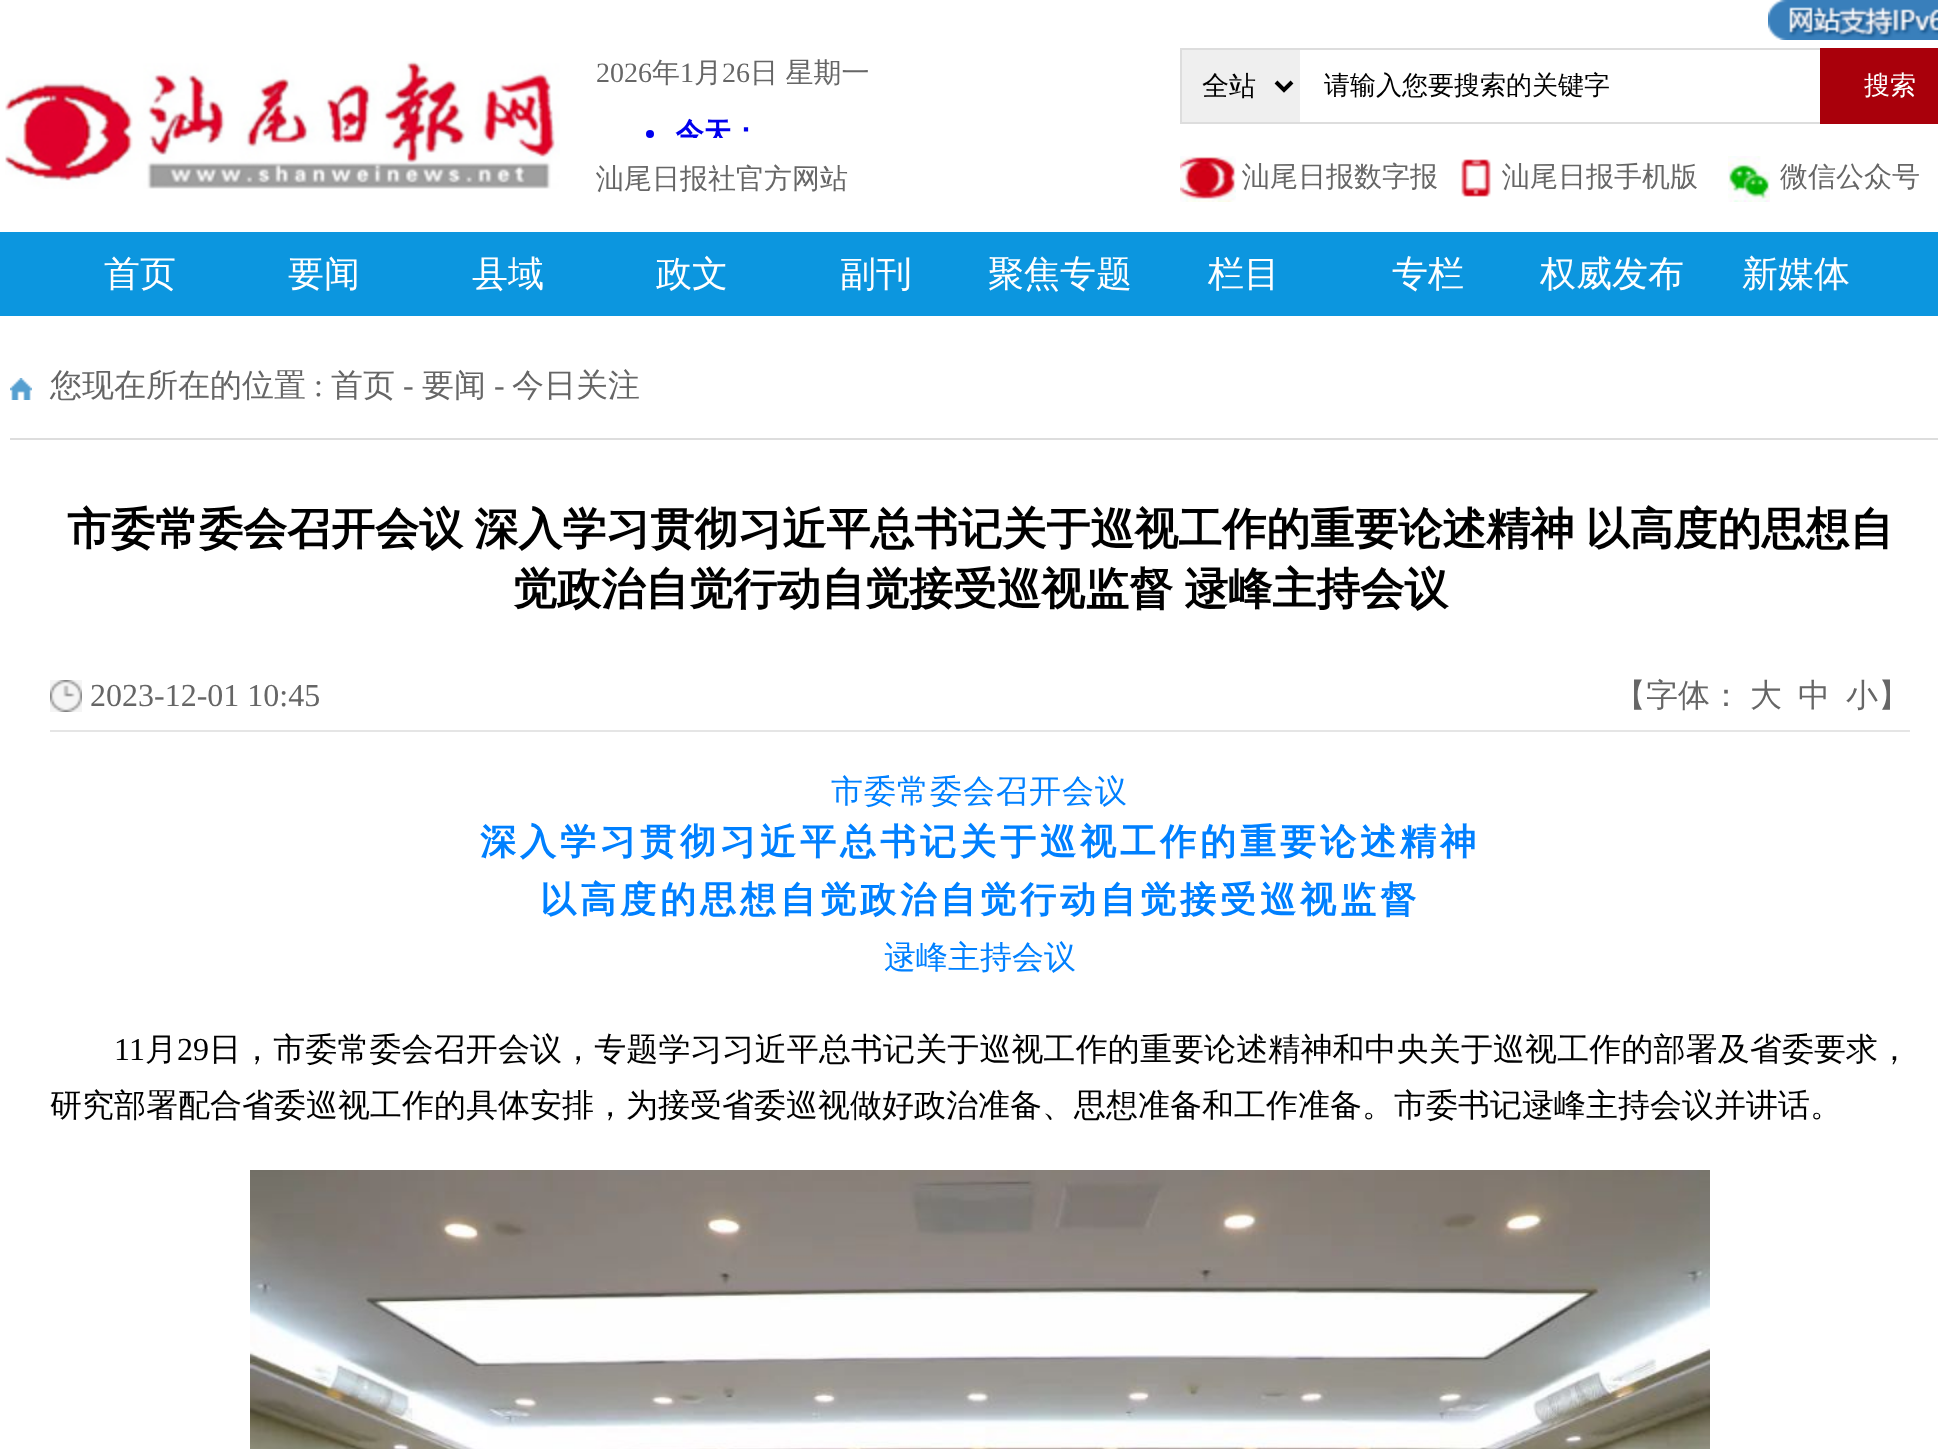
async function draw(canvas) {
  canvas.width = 1938;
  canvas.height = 1449;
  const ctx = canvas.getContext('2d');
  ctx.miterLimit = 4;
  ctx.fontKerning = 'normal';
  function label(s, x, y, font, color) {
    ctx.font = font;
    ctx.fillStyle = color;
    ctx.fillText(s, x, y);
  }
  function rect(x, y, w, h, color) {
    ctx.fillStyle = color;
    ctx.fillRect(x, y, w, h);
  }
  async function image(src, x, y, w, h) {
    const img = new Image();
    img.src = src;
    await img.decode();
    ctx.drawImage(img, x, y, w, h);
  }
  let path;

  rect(0, 0, 1938, 1449, '#fff');
  await image('assets/img1.png', 1768, 0, 170, 40);
  await image('assets/img2.png', 5, 61, 555, 128);
  label('2026', 596, 82, '28px Liberation Serif', '#666');
  label('年', 652, 82, '500 28px WenQuanYi Zen Hei', '#666');
  label('1', 680, 82, '28px Liberation Serif', '#666');
  label('月', 694, 82, '500 28px WenQuanYi Zen Hei', '#666');
  label('26', 722, 82, '28px Liberation Serif', '#666');
  ctx.wordSpacing = '-1px';
  label('日 星期一', 750, 82, '500 28px WenQuanYi Zen Hei', '#666');
  await image('assets/img3.png', 646, 118, 103, 20);
  ctx.wordSpacing = '0px';
  label('汕尾日报社官方网站', 596, 188, '500 28px WenQuanYi Zen Hei', '#666');
  rect(1180, 48, 642, 2, '#ddd');
  rect(1180, 122, 642, 2, '#ddd');
  rect(1180, 48, 2, 76, '#ddd');
  rect(1182, 50, 118, 72, '#efefef');
  path = new Path2D('M1276 82L1284 90L1292 82');
  ctx.strokeStyle = '#000';
  ctx.lineWidth = 4;
  ctx.stroke(path);
  label('全站', 1202, 95, '500 27px WenQuanYi Zen Hei', '#000');
  label('请输入您要搜索的关键字', 1324, 94, '500 26px WenQuanYi Zen Hei', '#000');
  rect(1820, 48, 118, 76, '#a9000b');
  label('搜索', 1864, 94, '500 26px WenQuanYi Zen Hei', '#fff');
  await image('assets/img4.png', 1180, 156, 56, 46);
  label('汕尾日报数字报', 1242, 186, '500 28px WenQuanYi Zen Hei', '#666');
  await image('assets/img5.png', 1461, 159, 30, 38);
  label('汕尾日报手机版', 1502, 186, '500 28px WenQuanYi Zen Hei', '#666');
  await image('assets/img6.png', 1728, 156, 42, 46);
  label('微信公众号', 1780, 186, '500 28px WenQuanYi Zen Hei', '#666');
  rect(0, 232, 1938, 84, '#0c96df');
  label('首页', 104, 286, '500 36px WenQuanYi Zen Hei', '#fff');
  label('要闻', 288, 286, '500 36px WenQuanYi Zen Hei', '#fff');
  label('县域', 472, 286, '500 36px WenQuanYi Zen Hei', '#fff');
  label('政文', 656, 286, '500 36px WenQuanYi Zen Hei', '#fff');
  label('副刊', 840, 286, '500 36px WenQuanYi Zen Hei', '#fff');
  label('聚焦专题', 988, 286, '500 36px WenQuanYi Zen Hei', '#fff');
  label('栏目', 1208, 286, '500 36px WenQuanYi Zen Hei', '#fff');
  label('专栏', 1392, 286, '500 36px WenQuanYi Zen Hei', '#fff');
  label('权威发布', 1540, 286, '500 36px WenQuanYi Zen Hei', '#fff');
  label('新媒体', 1742, 286, '500 36px WenQuanYi Zen Hei', '#fff');
  rect(10, 438, 1928, 2, '#ddd');
  await image('assets/img7.png', 10, 378, 22, 22);
  label('您现在所在的位置', 50, 396, '500 32px WenQuanYi Zen Hei', '#666');
  label(':', 314, 396, '32px Liberation Serif', '#666');
  label('首页', 331, 396, '500 32px WenQuanYi Zen Hei', '#666');
  label('-', 403, 396, '32px Liberation Serif', '#666');
  label('要闻', 422, 396, '500 32px WenQuanYi Zen Hei', '#666');
  label('-', 494, 396, '32px Liberation Serif', '#666');
  label('今日关注', 512, 396, '500 32px WenQuanYi Zen Hei', '#666');
  ctx.wordSpacing = '-2px';
  label('市委常委会召开会议 深入学习贯彻习近平总书记关于巡视工作的重要论述精神 以高度的思想自', 67, 544, 'bold 44px WenQuanYi Zen Hei', '#000');
  label('觉政治自觉行动自觉接受巡视监督 逯峰主持会议', 513, 604, 'bold 44px WenQuanYi Zen Hei', '#000');
  rect(50, 730, 1860, 2, '#e5e5e5');
  await image('assets/img8.png', 50, 680, 32, 32);
  ctx.wordSpacing = '0px';
  label('2023-12-01 10:45', 90, 706, '32px Liberation Serif', '#666');
  label('【字体：', 1614, 706, '500 32px WenQuanYi Zen Hei', '#666');
  label('大', 1750, 706, '500 32px WenQuanYi Zen Hei', '#666');
  label('中', 1798, 706, '500 32px WenQuanYi Zen Hei', '#666');
  label('小】', 1846, 706, '500 32px WenQuanYi Zen Hei', '#666');
  ctx.letterSpacing = '1px';
  label('市委常委会召开会议', 831, 802, '500 32px WenQuanYi Zen Hei', '#0080ff');
  ctx.letterSpacing = '4px';
  label('深入学习贯彻习近平总书记关于巡视工作的重要论述精神', 480, 854, 'bold 36px WenQuanYi Zen Hei', '#0080ff');
  label('以高度的思想自觉政治自觉行动自觉接受巡视监督', 540, 912, 'bold 36px WenQuanYi Zen Hei', '#0080ff');
  ctx.letterSpacing = '0px';
  label('逯峰主持会议', 884, 968, '500 32px WenQuanYi Zen Hei', '#0080ff');
  ctx.letterSpacing = '0.1px';
  label('11', 114, 1060, '32px Liberation Serif', '#000');
  label('月', 145, 1060, '500 32px WenQuanYi Zen Hei', '#000');
  label('29', 177, 1060, '32px Liberation Serif', '#000');
  label('日，市委常委会召开会议，专题学习习近平总书记关于巡视工作的重要论述精神和中央关于巡视工作的部署及省委要求，', 209, 1060, '500 32px WenQuanYi Zen Hei', '#000');
  ctx.letterSpacing = '0px';
  label('研究部署配合省委巡视工作的具体安排，为接受省委巡视做好政治准备、思想准备和工作准备。市委书记逯峰主持会议并讲话。', 50, 1116, '500 32px WenQuanYi Zen Hei', '#000');
  await image('assets/img9.png', 250, 1170, 1460, 279);
}

draw(document.querySelector('canvas'));
